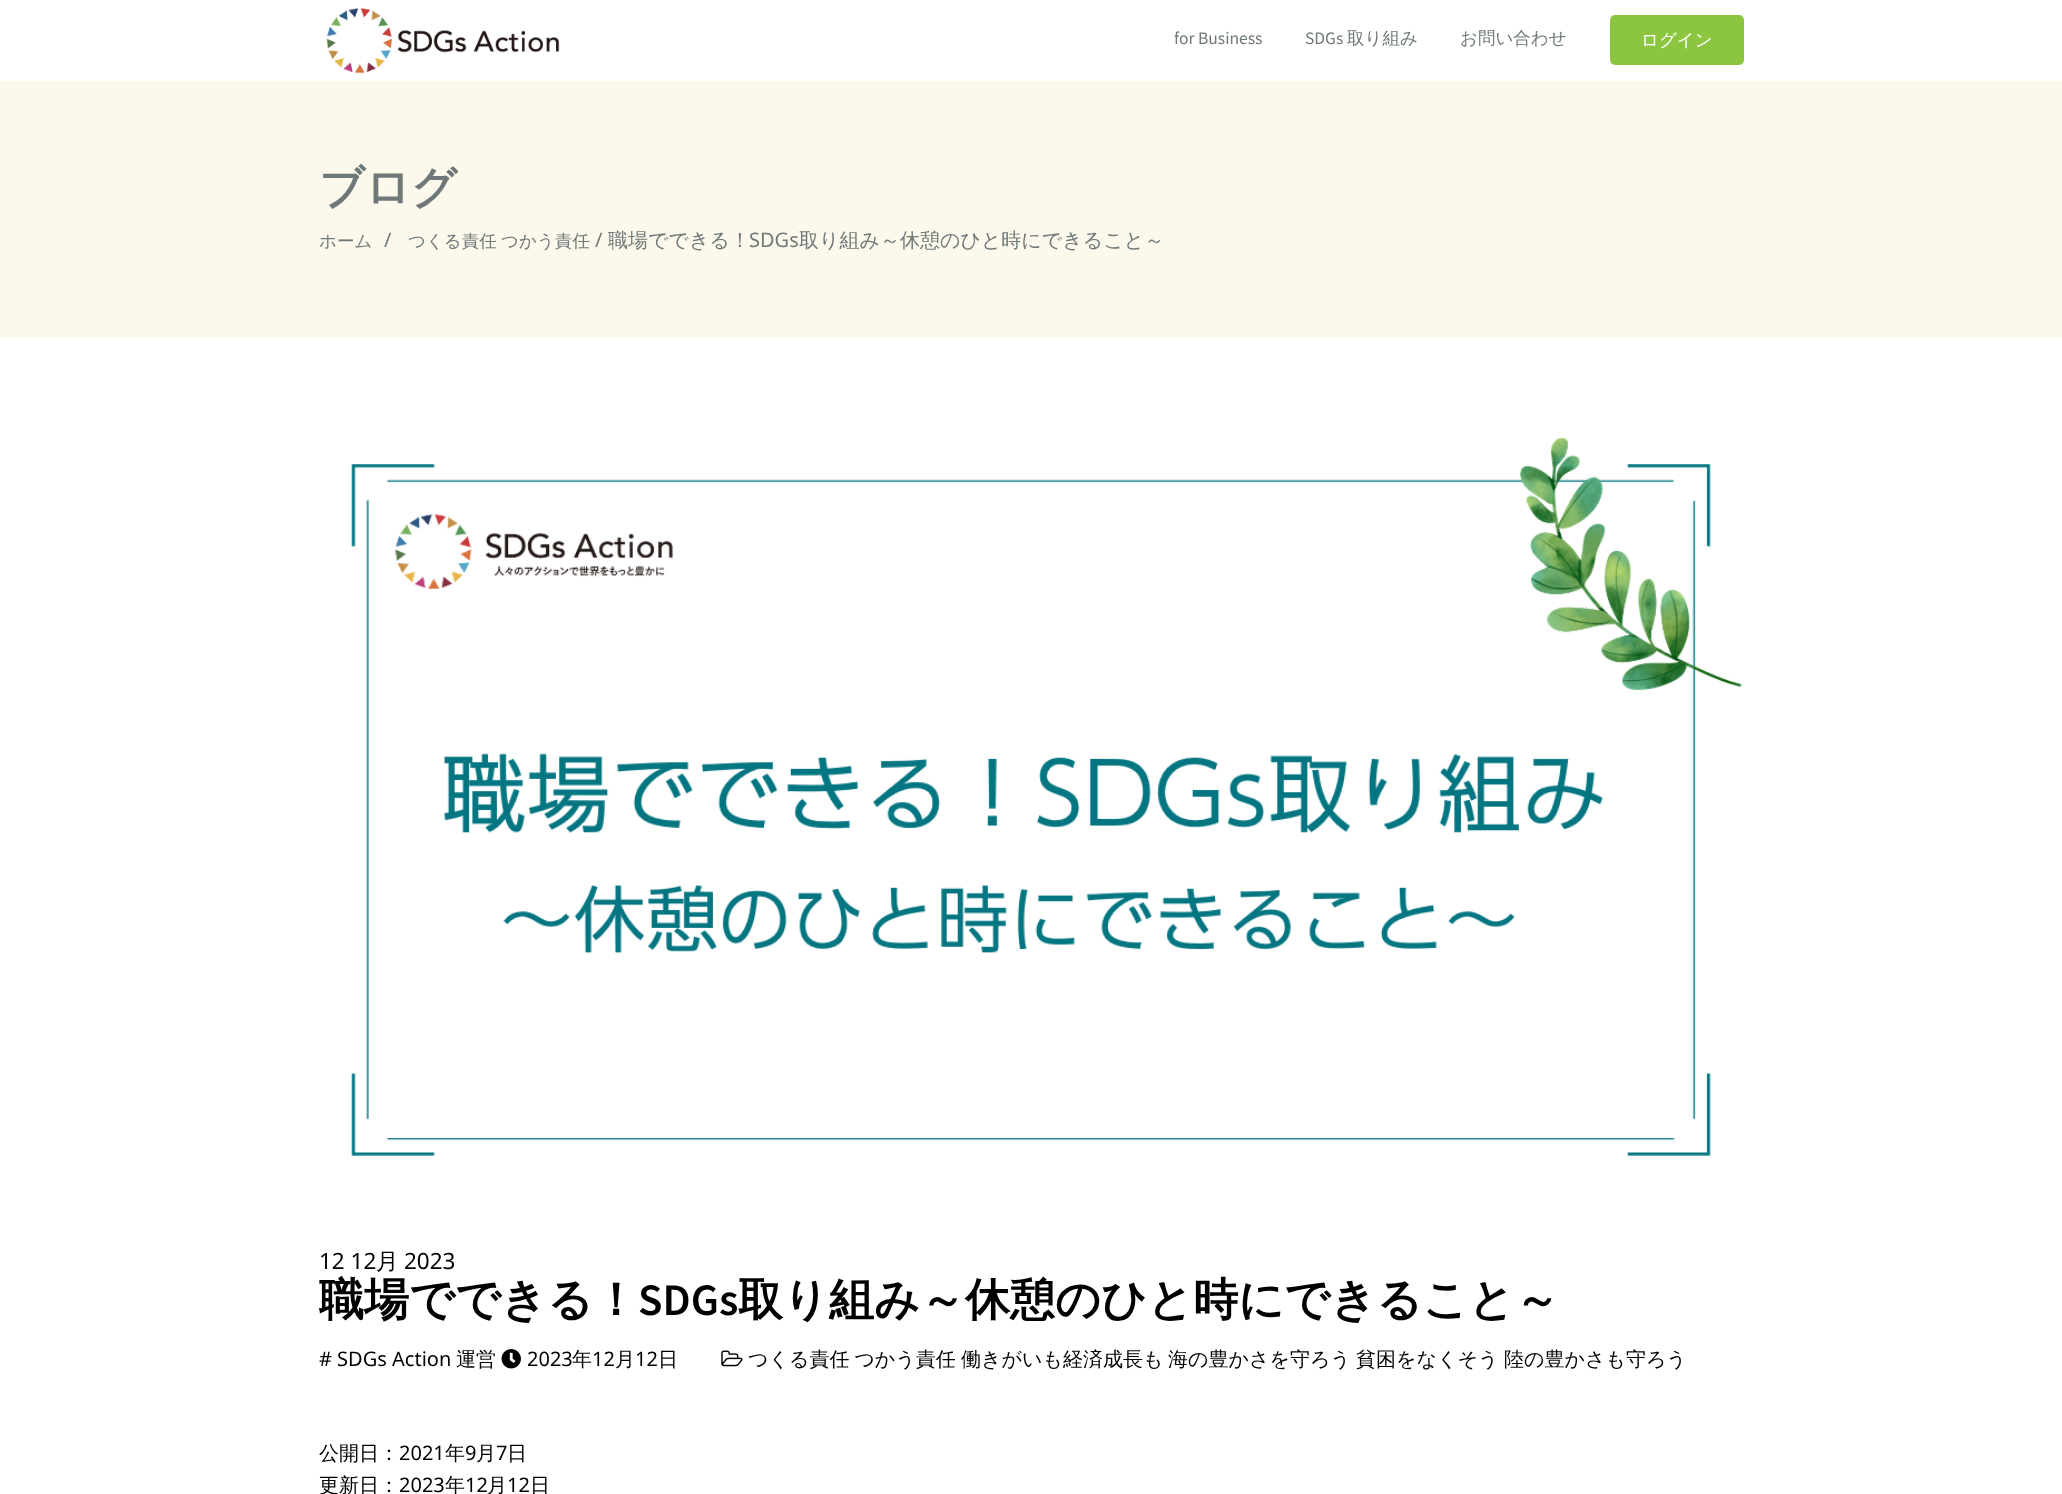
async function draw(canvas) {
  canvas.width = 2062;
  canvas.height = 1494;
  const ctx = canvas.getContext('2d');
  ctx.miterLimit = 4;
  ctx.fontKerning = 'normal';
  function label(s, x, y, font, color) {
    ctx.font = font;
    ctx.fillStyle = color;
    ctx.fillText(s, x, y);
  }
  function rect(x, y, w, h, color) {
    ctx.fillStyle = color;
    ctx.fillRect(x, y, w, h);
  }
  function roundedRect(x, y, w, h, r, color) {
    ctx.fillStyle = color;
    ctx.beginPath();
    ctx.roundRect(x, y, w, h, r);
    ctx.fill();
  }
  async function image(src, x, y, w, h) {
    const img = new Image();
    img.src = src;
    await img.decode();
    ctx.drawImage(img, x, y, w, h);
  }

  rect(0, 0, 2062, 1494, '#fff');
  await image('assets/img1.png', 326, 8, 234, 66);
  label('for Business', 1174, 44, '17.5px Source Sans Pro', '#6f797a');
  label('SDGs', 1305, 44, '17.5px Source Sans Pro', '#6f797a');
  label('取り組み', 1347, 44, '500 17.5px WenQuanYi Zen Hei', '#6f797a');
  label('お問い合わせ', 1460, 44, '500 17.5px WenQuanYi Zen Hei', '#6f797a');
  roundedRect(1610, 15, 134, 50, 5, '#8cc641');
  label('ログイン', 1641, 46, '500 17.5px WenQuanYi Zen Hei', '#fff');
  rect(0, 81, 2062, 257, '#fcf8eb');
  label('ブログ', 319, 203, 'bold 45px WenQuanYi Zen Hei', '#6f797a');
  label('ホーム', 319, 247, '500 17.5px WenQuanYi Zen Hei', '#6f797a');
  label('/', 384, 247, '20px Noto Sans', '#6f797a');
  ctx.wordSpacing = '-1px';
  label('つくる責任 つかう責任', 408, 247, '500 17.5px WenQuanYi Zen Hei', '#6f797a');
  ctx.wordSpacing = '0px';
  label('/', 595, 247, '20px Noto Sans', '#6f797a');
  label('職場でできる！', 608, 247, '500 20px WenQuanYi Zen Hei', '#6f797a');
  label('SDGs', 749, 247, '20px Noto Sans', '#6f797a');
  label('取り組み～休憩のひと時にできること～', 799, 247, '500 20px WenQuanYi Zen Hei', '#6f797a');
  await image('assets/img2.png', 351, 437, 1391, 719);
  label('12 12', 319, 1269, '22.5px Noto Sans', '#000');
  label('月', 376, 1269, '500 22.5px WenQuanYi Zen Hei', '#000');
  label('2023', 404, 1269, '22.5px Noto Sans', '#000');
  label('職場でできる！', 319, 1315, 'bold 45px WenQuanYi Zen Hei', '#000');
  label('SDGs', 638, 1315, '600 45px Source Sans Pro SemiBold', '#000');
  label('取り組み～休憩のひと時にできること～', 738, 1315, 'bold 45px WenQuanYi Zen Hei', '#000');
  label('# SDGs Action', 319, 1366, '20px Noto Sans', '#000');
  label('運営', 456, 1366, '500 20px WenQuanYi Zen Hei', '#000');
  await image('assets/img3.png', 501, 1349, 20, 20);
  label('2023', 527, 1366, '20px Noto Sans', '#000');
  label('年', 572, 1366, '500 20px WenQuanYi Zen Hei', '#000');
  label('12', 592, 1366, '20px Noto Sans', '#000');
  label('月', 615, 1366, '500 20px WenQuanYi Zen Hei', '#000');
  label('12', 635, 1366, '20px Noto Sans', '#000');
  label('日', 658, 1366, '500 20px WenQuanYi Zen Hei', '#000');
  await image('assets/img4.png', 721, 1350, 22, 17);
  ctx.wordSpacing = '-1px';
  label('つくる責任 つかう責任', 748, 1366, '500 20px WenQuanYi Zen Hei', '#000');
  ctx.wordSpacing = '0px';
  label('働きがいも経済成長も', 961, 1366, '500 20px WenQuanYi Zen Hei', '#000');
  label('海の豊かさを守ろう', 1168, 1366, '500 20px WenQuanYi Zen Hei', '#000');
  label('貧困をなくそう', 1356, 1366, '500 20px WenQuanYi Zen Hei', '#000');
  label('陸の豊かさも守ろう', 1504, 1366, '500 20px WenQuanYi Zen Hei', '#000');
  label('公開日：', 319, 1460, '500 20px WenQuanYi Zen Hei', '#000');
  label('2021', 399, 1460, '20px Noto Sans', '#000');
  label('年', 445, 1460, '500 20px WenQuanYi Zen Hei', '#000');
  label('9', 465, 1460, '20px Noto Sans', '#000');
  label('月', 476, 1460, '500 20px WenQuanYi Zen Hei', '#000');
  label('7', 496, 1460, '20px Noto Sans', '#000');
  label('日', 507, 1460, '500 20px WenQuanYi Zen Hei', '#000');
  label('更新日：', 319, 1492, '500 20px WenQuanYi Zen Hei', '#000');
  label('2023', 399, 1492, '20px Noto Sans', '#000');
  label('年', 445, 1492, '500 20px WenQuanYi Zen Hei', '#000');
  label('12', 465, 1492, '20px Noto Sans', '#000');
  label('月', 487, 1492, '500 20px WenQuanYi Zen Hei', '#000');
  label('12', 507, 1492, '20px Noto Sans', '#000');
  label('日', 530, 1492, '500 20px WenQuanYi Zen Hei', '#000');
}

draw(document.querySelector('canvas'));
